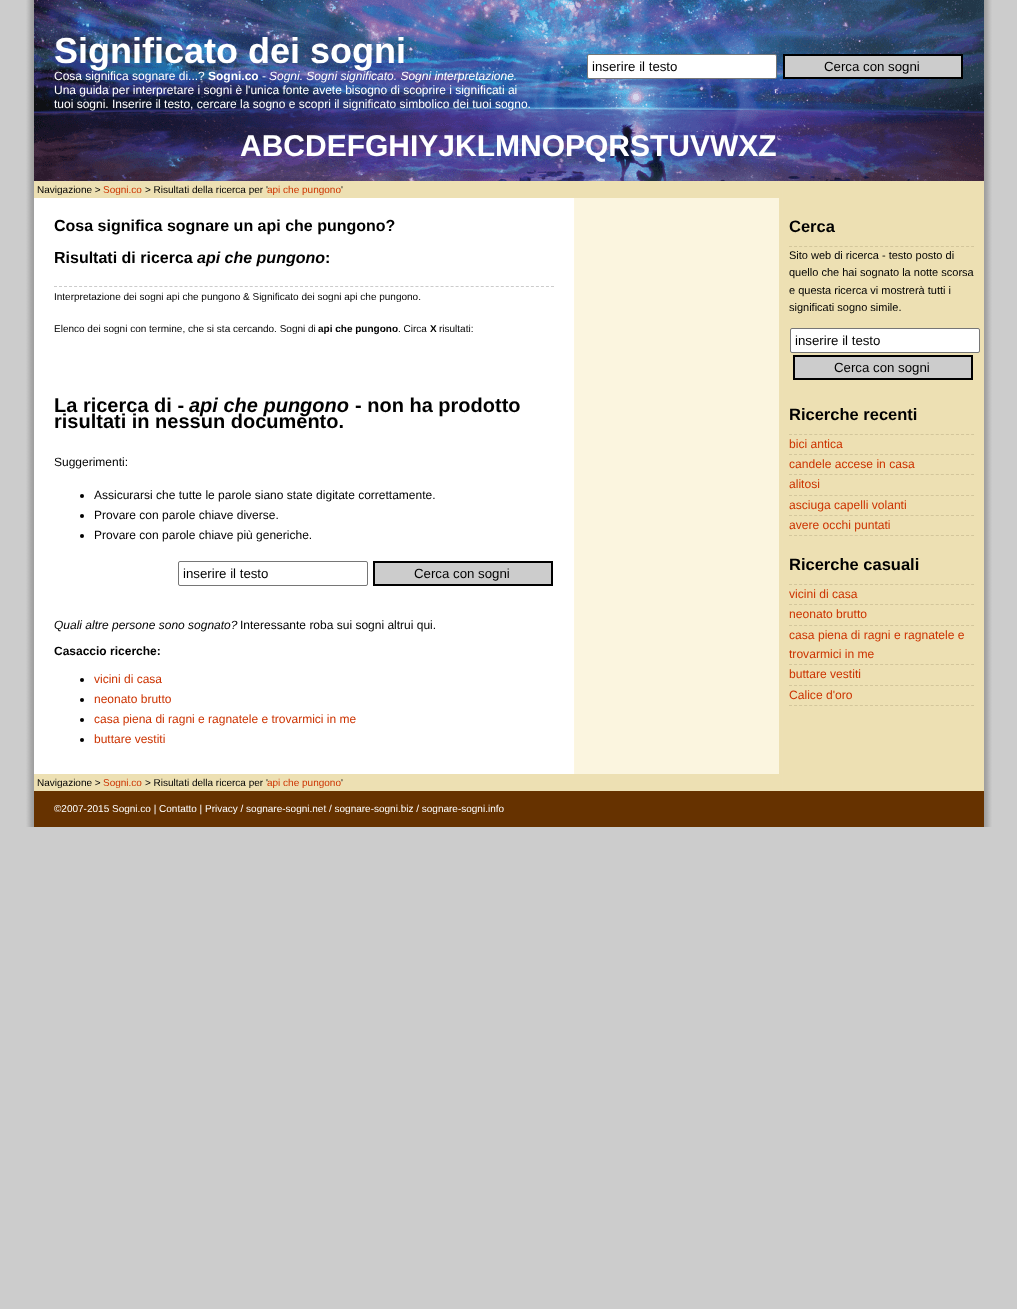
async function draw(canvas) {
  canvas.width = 1017;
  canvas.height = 1309;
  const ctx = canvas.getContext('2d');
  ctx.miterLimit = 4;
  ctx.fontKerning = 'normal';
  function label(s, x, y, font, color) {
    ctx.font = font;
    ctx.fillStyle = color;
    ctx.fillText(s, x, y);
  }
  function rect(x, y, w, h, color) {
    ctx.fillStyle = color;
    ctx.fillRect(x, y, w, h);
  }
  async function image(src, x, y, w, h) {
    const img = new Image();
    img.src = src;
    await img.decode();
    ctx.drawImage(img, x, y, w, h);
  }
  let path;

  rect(0, 0, 1017, 1309, '#ccc');
  await image('assets/img1.png', 24, 0, 970, 827);
  await image('assets/img2.png', 34, 0, 950, 181);
  label('Significato dei sogni', 54, 63, 'bold 36px Liberation Sans', '#fff');
  label('Cosa significa sognare di...?', 54, 80, '12px Liberation Sans', '#fff');
  label('Sogni.co', 208, 80, 'bold 12px Liberation Sans', '#fff');
  label('-', 262, 80, '12px Liberation Sans', '#fff');
  label('Sogni. Sogni significato. Sogni interpretazione.', 269, 80, 'italic 12px Liberation Sans', '#fff');
  label('Una guida per interpretare i sogni è l\'unica fonte avete bisogno di scoprire i significati ai', 54, 94, '12px Liberation Sans', '#fff');
  label('tuoi sogni. Inserire il testo, cercare la sogno e scopri il significato simbolico dei tuoi sogno.', 54, 108, '12px Liberation Sans', '#fff');
  ctx.beginPath();
  ctx.roundRect(587.5, 54.5, 189, 24, 1.5);
  ctx.fill();
  ctx.strokeStyle = '#767676';
  ctx.stroke();
  label('inserire il testo', 592, 71, '13.25px Liberation Sans', '#000');
  ctx.fillStyle = '#ccc';
  ctx.beginPath();
  ctx.rect(784, 55, 178, 23);
  ctx.fill();
  ctx.strokeStyle = '#000';
  ctx.lineWidth = 2;
  ctx.stroke();
  label('Cerca con sogni', 824, 71, '13.25px Liberation Sans', '#000');
  label('ABCDEFGHIYJKLMNOPQRSTUVWXZ', 240, 156, 'bold 30px Liberation Sans', '#fff');
  rect(34, 181, 745, 17, '#ede0b3');
  label('Navigazione >', 37, 193, '10px Liberation Sans', '#000');
  label('Sogni.co', 103, 193, '10px Liberation Sans', '#c30');
  label('> Risultati della ricerca per \'', 145, 193, '10px Liberation Sans', '#000');
  label('api che pungono', 267, 193, '10px Liberation Sans', '#c30');
  label('\'', 341, 193, '10px Liberation Sans', '#000');
  label('Cosa significa sognare un api che pungono?', 54, 231, 'bold 16px Liberation Sans', '#000');
  label('Risultati di ricerca', 54, 263, 'bold 16px Liberation Sans', '#000');
  label('api che pungono', 197, 263, 'italic bold 16px Liberation Sans', '#000');
  label(':', 325, 263, 'bold 16px Liberation Sans', '#000');
  path = new Path2D('M54 286.5H554');
  ctx.strokeStyle = '#ccc';
  ctx.lineWidth = 1;
  ctx.setLineDash([3, 2.02]);
  ctx.stroke(path);
  label('Interpretazione dei sogni api che pungono & Significato dei sogni api che pungono.', 54, 300, '10px Liberation Sans', '#000');
  label('Elenco dei sogni con termine, che si sta cercando. Sogni di', 54, 332, '10px Liberation Sans', '#000');
  label('api che pungono', 318, 332, 'bold 10px Liberation Sans', '#000');
  label('. Circa', 398, 332, '10px Liberation Sans', '#000');
  label('X', 430, 332, 'bold 10px Liberation Sans', '#000');
  label('risultati:', 439, 332, '10px Liberation Sans', '#000');
  label('La ricerca di -', 54, 412, 'bold 20px Liberation Sans', '#000');
  label('api che pungono', 189, 412, 'italic bold 20px Liberation Sans', '#000');
  label('- non ha prodotto', 355, 412, 'bold 20px Liberation Sans', '#000');
  label('risultati in nessun documento.', 54, 428, 'bold 20px Liberation Sans', '#000');
  label('Suggerimenti:', 54, 466, '12px Liberation Sans', '#000');
  ctx.beginPath();
  ctx.arc(82, 496, 2, 0, 2 * Math.PI);
  ctx.fill();
  label('Assicurarsi che tutte le parole siano state digitate correttamente.', 94, 499, '12px Liberation Sans', '#000');
  ctx.beginPath();
  ctx.arc(82, 516, 2, 0, 2 * Math.PI);
  ctx.fill();
  label('Provare con parole chiave diverse.', 94, 519, '12px Liberation Sans', '#000');
  ctx.beginPath();
  ctx.arc(82, 536, 2, 0, 2 * Math.PI);
  ctx.fill();
  label('Provare con parole chiave più generiche.', 94, 539, '12px Liberation Sans', '#000');
  ctx.beginPath();
  ctx.roundRect(178.5, 561.5, 189, 24, 1.5);
  ctx.strokeStyle = '#767676';
  ctx.setLineDash([]);
  ctx.stroke();
  label('inserire il testo', 183, 578, '13.25px Liberation Sans', '#000');
  ctx.fillStyle = '#ccc';
  ctx.beginPath();
  ctx.rect(374, 562, 178, 23);
  ctx.fill();
  ctx.strokeStyle = '#000';
  ctx.lineWidth = 2;
  ctx.stroke();
  label('Cerca con sogni', 414, 578, '13.25px Liberation Sans', '#000');
  label('Quali altre persone sono sognato?', 54, 629, 'italic 12px Liberation Sans', '#000');
  label('Interessante roba sui sogni altrui qui.', 240, 629, '12px Liberation Sans', '#000');
  label('Casaccio ricerche:', 54, 655, 'bold 12px Liberation Sans', '#000');
  ctx.beginPath();
  ctx.arc(82, 680, 2, 0, 2 * Math.PI);
  ctx.fill();
  label('vicini di casa', 94, 683, '12px Liberation Sans', '#c30');
  ctx.fillStyle = '#000';
  ctx.beginPath();
  ctx.arc(82, 700, 2, 0, 2 * Math.PI);
  ctx.fill();
  label('neonato brutto', 94, 703, '12px Liberation Sans', '#c30');
  ctx.fillStyle = '#000';
  ctx.beginPath();
  ctx.arc(82, 720, 2, 0, 2 * Math.PI);
  ctx.fill();
  label('casa piena di ragni e ragnatele e trovarmici in me', 94, 723, '12px Liberation Sans', '#c30');
  ctx.fillStyle = '#000';
  ctx.beginPath();
  ctx.arc(82, 740, 2, 0, 2 * Math.PI);
  ctx.fill();
  label('buttare vestiti', 94, 743, '12px Liberation Sans', '#c30');
  path = new Path2D('M789 246.5H974');
  ctx.strokeStyle = '#d3c69b';
  ctx.lineWidth = 1;
  ctx.setLineDash([3, 2.06]);
  ctx.stroke(path);
  label('Cerca', 789, 232, 'bold 16.5px Liberation Sans', '#000');
  label('Sito web di ricerca - testo posto di', 789, 259, '11px Liberation Sans', '#000');
  label('quello che hai sognato la notte scorsa', 789, 276, '11px Liberation Sans', '#000');
  label('e questa ricerca vi mostrerà tutti i', 789, 294, '11px Liberation Sans', '#000');
  label('significati sogno simile.', 789, 311, '11px Liberation Sans', '#000');
  ctx.fillStyle = '#fff';
  ctx.beginPath();
  ctx.roundRect(790.5, 328.5, 189, 24, 1.5);
  ctx.fill();
  ctx.strokeStyle = '#767676';
  ctx.setLineDash([]);
  ctx.stroke();
  label('inserire il testo', 795, 345, '13.25px Liberation Sans', '#000');
  ctx.fillStyle = '#ccc';
  ctx.beginPath();
  ctx.rect(794, 356, 178, 23);
  ctx.fill();
  ctx.strokeStyle = '#000';
  ctx.lineWidth = 2;
  ctx.stroke();
  label('Cerca con sogni', 834, 372, '13.25px Liberation Sans', '#000');
  path = new Path2D('M789 434.5H974');
  ctx.strokeStyle = '#d3c69b';
  ctx.lineWidth = 1;
  ctx.setLineDash([3, 2.06]);
  ctx.stroke(path);
  label('Ricerche recenti', 789, 420, 'bold 16.5px Liberation Sans', '#000');
  path = new Path2D('M789 454.5H974');
  ctx.stroke(path);
  label('bici antica', 789, 448, '12.1px Liberation Sans', '#c30');
  path = new Path2D('M789 474.5H974');
  ctx.stroke(path);
  label('candele accese in casa', 789, 468, '12.1px Liberation Sans', '#c30');
  path = new Path2D('M789 495.5H974');
  ctx.stroke(path);
  label('alitosi', 789, 488, '12.1px Liberation Sans', '#c30');
  path = new Path2D('M789 515.5H974');
  ctx.stroke(path);
  label('asciuga capelli volanti', 789, 509, '12.1px Liberation Sans', '#c30');
  path = new Path2D('M789 535.5H974');
  ctx.stroke(path);
  label('avere occhi puntati', 789, 529, '12.1px Liberation Sans', '#c30');
  path = new Path2D('M789 584.5H974');
  ctx.stroke(path);
  label('Ricerche casuali', 789, 570, 'bold 16.5px Liberation Sans', '#000');
  path = new Path2D('M789 604.5H974');
  ctx.stroke(path);
  label('vicini di casa', 789, 598, '12.1px Liberation Sans', '#c30');
  path = new Path2D('M789 625.5H974');
  ctx.stroke(path);
  label('neonato brutto', 789, 618, '12.1px Liberation Sans', '#c30');
  path = new Path2D('M789 664.5H974');
  ctx.stroke(path);
  label('casa piena di ragni e ragnatele e', 789, 639, '12.1px Liberation Sans', '#c30');
  label('trovarmici in me', 789, 658, '12.1px Liberation Sans', '#c30');
  path = new Path2D('M789 685.5H974');
  ctx.stroke(path);
  label('buttare vestiti', 789, 678, '12.1px Liberation Sans', '#c30');
  path = new Path2D('M789 705.5H974');
  ctx.stroke(path);
  label('Calice d\'oro', 789, 699, '12.1px Liberation Sans', '#c30');
  rect(34, 791, 950, 36, '#663200');
  rect(34, 774, 745, 17, '#ede0b3');
  label('Navigazione >', 37, 786, '10px Liberation Sans', '#000');
  label('Sogni.co', 103, 786, '10px Liberation Sans', '#c30');
  label('> Risultati della ricerca per \'', 145, 786, '10px Liberation Sans', '#000');
  label('api che pungono', 267, 786, '10px Liberation Sans', '#c30');
  label('\'', 341, 786, '10px Liberation Sans', '#000');
  label('©2007-2015 Sogni.co | Contatto | Privacy / sognare-sogni.net / sognare-sogni.biz / sognare-sogni.info', 54, 812, '10px Liberation Sans', '#fff');
}

draw(document.querySelector('canvas'));
